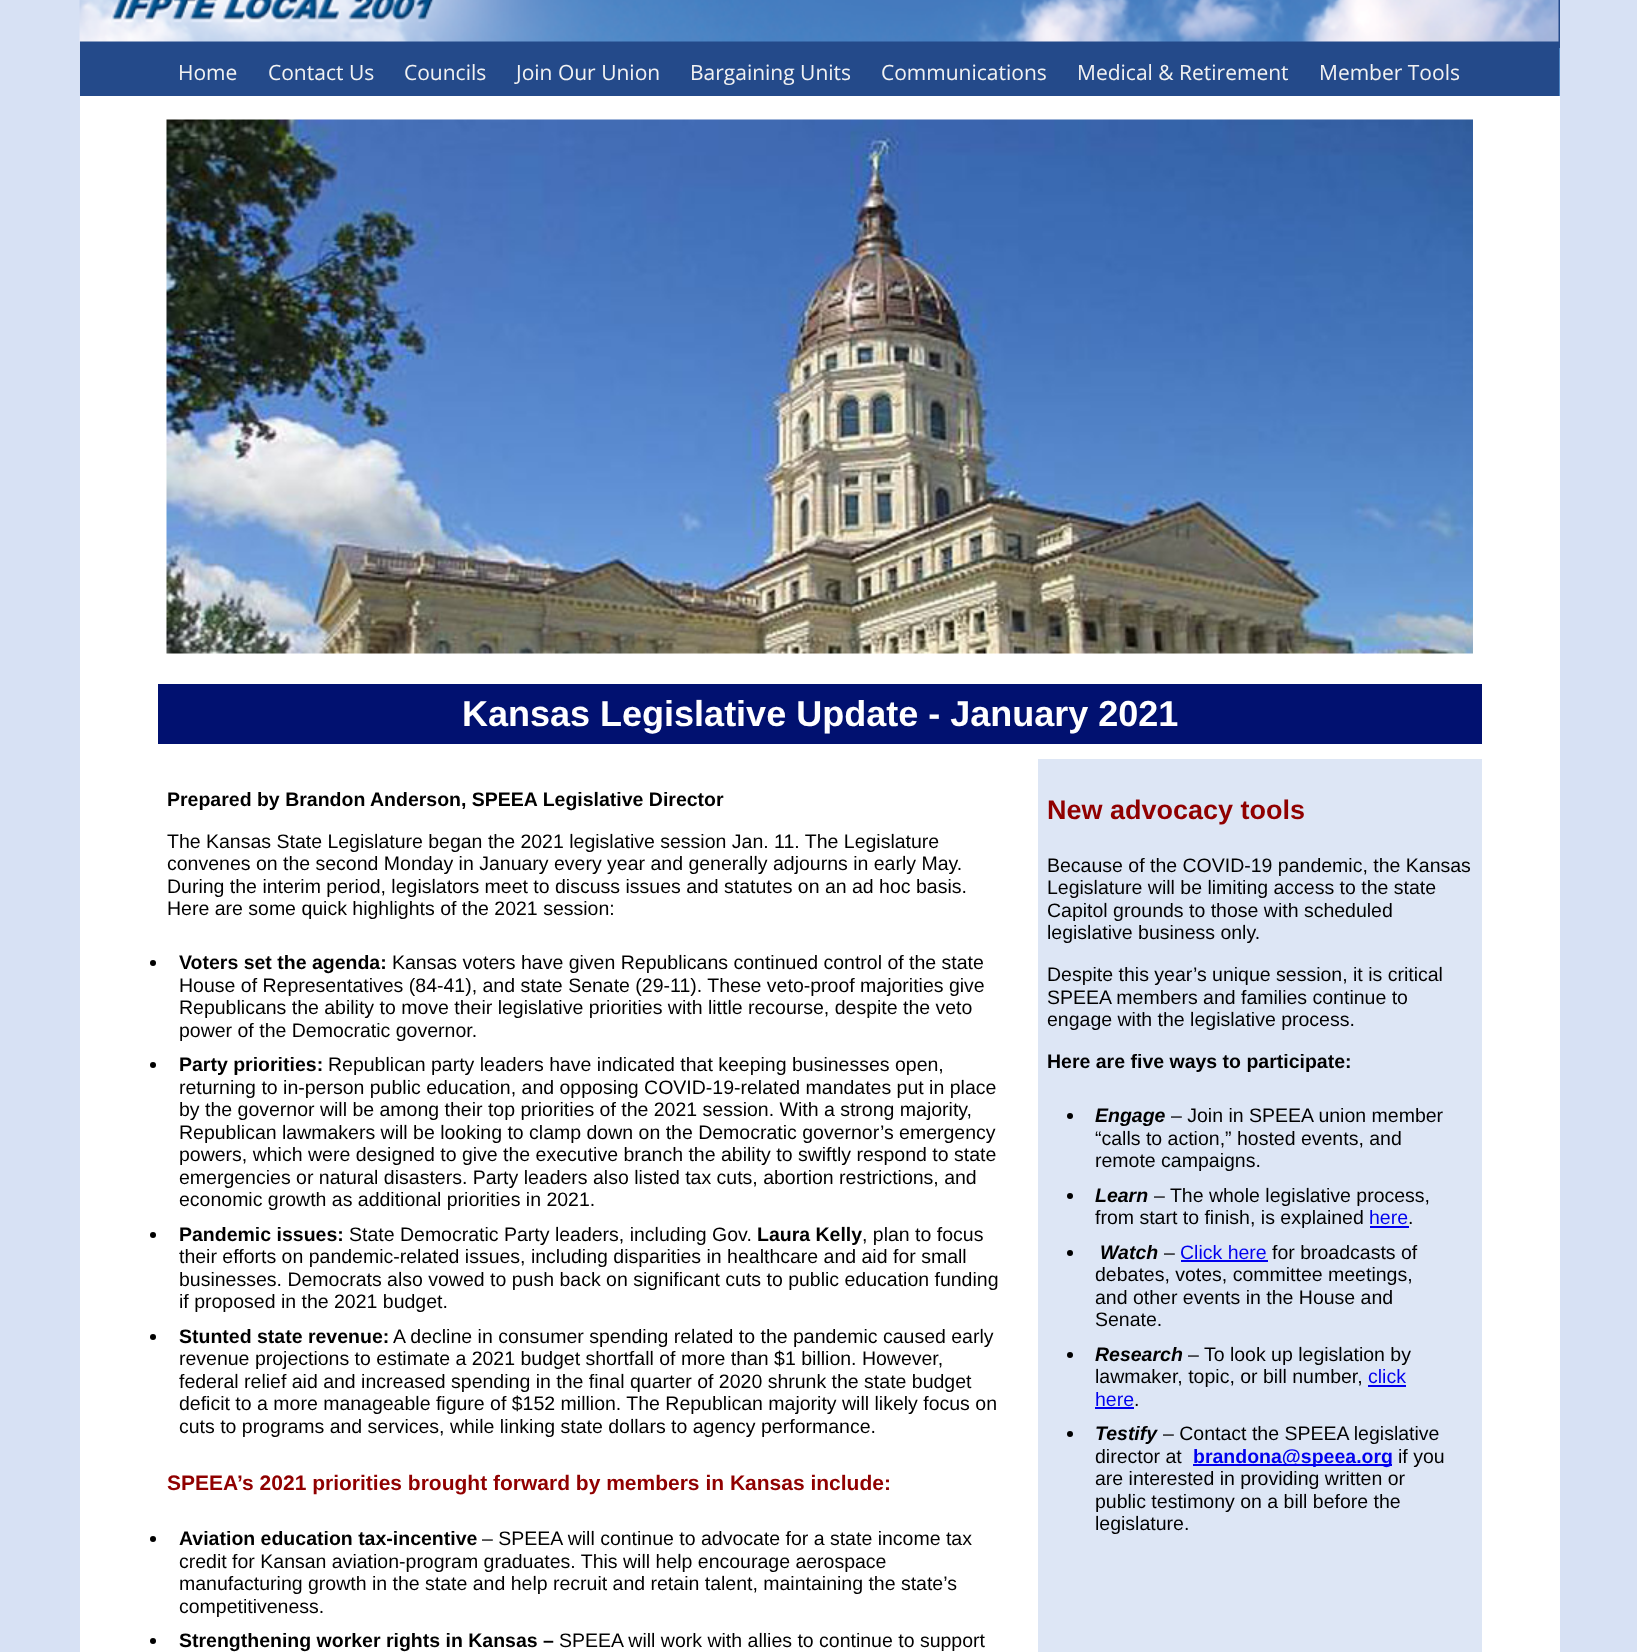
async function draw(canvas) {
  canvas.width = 1637;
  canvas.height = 1652;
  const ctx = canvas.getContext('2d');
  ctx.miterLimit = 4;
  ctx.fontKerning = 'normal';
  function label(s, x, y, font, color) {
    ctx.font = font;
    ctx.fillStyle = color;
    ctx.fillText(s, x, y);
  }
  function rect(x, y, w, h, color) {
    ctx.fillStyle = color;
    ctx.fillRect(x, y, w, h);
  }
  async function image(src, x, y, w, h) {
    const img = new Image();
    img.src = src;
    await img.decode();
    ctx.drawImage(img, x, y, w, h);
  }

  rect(0, 0, 1637, 1652, '#d7e1f4');
  rect(80, 0, 1480, 48, '#244a8a');
  await image('assets/img1.png', 79, 0, 1480, 42);
  rect(1559, 48, 1, 48, '#4b84c4');
  rect(80, 48, 1479, 48, '#244a8a');
  label('Home', 178, 80, '21px Open Sans', '#f2f2f2');
  label('Contact Us', 268, 80, '21px Open Sans', '#f2f2f2');
  label('Councils', 404, 80, '21px Open Sans', '#f2f2f2');
  label('Join Our Union', 516, 80, '21px Open Sans', '#f2f2f2');
  label('Bargaining Units', 690, 80, '21px Open Sans', '#f2f2f2');
  label('Communications', 881, 80, '21px Open Sans', '#f2f2f2');
  label('Medical & Retirement', 1077, 80, '21px Open Sans', '#f2f2f2');
  label('Member Tools', 1319, 80, '21px Open Sans', '#f2f2f2');
  rect(80, 96, 1480, 1556, '#fff');
  await image('assets/img2.png', 166, 119, 1307, 535);
  rect(158, 684, 1324, 60, '#011170');
  label('Kansas Legislative Update - January 2021', 462, 726, 'bold 36px Liberation Sans', '#fff');
  label('Prepared by Brandon Anderson, SPEEA Legislative Director', 167, 806, 'bold 19.5px Liberation Sans', '#000');
  label('The Kansas State Legislature began the 2021 legislative session Jan. 11. The Legislature', 167, 848, '19.5px Liberation Sans', '#000');
  label('convenes on the second Monday in January every year and generally adjourns in early May.', 167, 870, '19.5px Liberation Sans', '#000');
  label('During the interim period, legislators meet to discuss issues and statutes on an ad hoc basis.', 167, 893, '19.5px Liberation Sans', '#000');
  label('Here are some quick highlights of the 2021 session:', 167, 915, '19.5px Liberation Sans', '#000');
  ctx.beginPath();
  ctx.arc(153, 963, 3, 0, 2 * Math.PI);
  ctx.fill();
  label('Voters set the agenda:', 179, 969, 'bold 19.5px Liberation Sans', '#000');
  label('Kansas voters have given Republicans continued control of the state', 392, 969, '19.5px Liberation Sans', '#000');
  label('House of Representatives (84-41), and state Senate (29-11). These veto-proof majorities give', 179, 992, '19.5px Liberation Sans', '#000');
  label('Republicans the ability to move their legislative priorities with little recourse, despite the veto', 179, 1014, '19.5px Liberation Sans', '#000');
  label('power of the Democratic governor.', 179, 1037, '19.5px Liberation Sans', '#000');
  ctx.beginPath();
  ctx.arc(153, 1065, 3, 0, 2 * Math.PI);
  ctx.fill();
  label('Party priorities:', 179, 1071, 'bold 19.5px Liberation Sans', '#000');
  label('Republican party leaders have indicated that keeping businesses open,', 328, 1071, '19.5px Liberation Sans', '#000');
  label('returning to in-person public education, and opposing COVID-19-related mandates put in place', 179, 1094, '19.5px Liberation Sans', '#000');
  label('by the governor will be among their top priorities of the 2021 session. With a strong majority,', 179, 1116, '19.5px Liberation Sans', '#000');
  label('Republican lawmakers will be looking to clamp down on the Democratic governor’s emergency', 179, 1139, '19.5px Liberation Sans', '#000');
  label('powers, which were designed to give the executive branch the ability to swiftly respond to state', 179, 1161, '19.5px Liberation Sans', '#000');
  label('emergencies or natural disasters. Party leaders also listed tax cuts, abortion restrictions, and', 179, 1184, '19.5px Liberation Sans', '#000');
  label('economic growth as additional priorities in 2021.', 179, 1206, '19.5px Liberation Sans', '#000');
  ctx.beginPath();
  ctx.arc(153, 1235, 3, 0, 2 * Math.PI);
  ctx.fill();
  label('Pandemic issues:', 179, 1241, 'bold 19.5px Liberation Sans', '#000');
  label('State Democratic Party leaders, including Gov.', 349, 1241, '19.5px Liberation Sans', '#000');
  label('Laura Kelly', 757, 1241, 'bold 19.5px Liberation Sans', '#000');
  label(', plan to focus', 862, 1241, '19.5px Liberation Sans', '#000');
  label('their efforts on pandemic-related issues, including disparities in healthcare and aid for small', 179, 1263, '19.5px Liberation Sans', '#000');
  label('businesses. Democrats also vowed to push back on significant cuts to public education funding', 179, 1286, '19.5px Liberation Sans', '#000');
  label('if proposed in the 2021 budget.', 179, 1308, '19.5px Liberation Sans', '#000');
  ctx.beginPath();
  ctx.arc(153, 1337, 3, 0, 2 * Math.PI);
  ctx.fill();
  label('Stunted state revenue:', 179, 1343, 'bold 19.5px Liberation Sans', '#000');
  label('A decline in consumer spending related to the pandemic caused early', 393, 1343, '19.5px Liberation Sans', '#000');
  label('revenue projections to estimate a 2021 budget shortfall of more than $1 billion. However,', 179, 1365, '19.5px Liberation Sans', '#000');
  label('federal relief aid and increased spending in the final quarter of 2020 shrunk the state budget', 179, 1388, '19.5px Liberation Sans', '#000');
  label('deficit to a more manageable figure of $152 million. The Republican majority will likely focus on', 179, 1410, '19.5px Liberation Sans', '#000');
  label('cuts to programs and services, while linking state dollars to agency performance.', 179, 1433, '19.5px Liberation Sans', '#000');
  label('SPEEA’s 2021 priorities brought forward by members in Kansas include:', 167, 1490, 'bold 21px Liberation Sans', '#900000');
  ctx.fillStyle = '#000';
  ctx.beginPath();
  ctx.arc(153, 1539, 3, 0, 2 * Math.PI);
  ctx.fill();
  label('Aviation education tax-incentive', 179, 1545, 'bold 19.5px Liberation Sans', '#000');
  label('– SPEEA will continue to advocate for a state income tax', 482, 1545, '19.5px Liberation Sans', '#000');
  label('credit for Kansan aviation-program graduates. This will help encourage aerospace', 179, 1568, '19.5px Liberation Sans', '#000');
  label('manufacturing growth in the state and help recruit and retain talent, maintaining the state’s', 179, 1590, '19.5px Liberation Sans', '#000');
  label('competitiveness.', 179, 1613, '19.5px Liberation Sans', '#000');
  ctx.beginPath();
  ctx.arc(153, 1641, 3, 0, 2 * Math.PI);
  ctx.fill();
  label('Strengthening worker rights in Kansas –', 179, 1647, 'bold 19.5px Liberation Sans', '#000');
  label('SPEEA will work with allies to continue to support', 559, 1647, '19.5px Liberation Sans', '#000');
  rect(1038, 759, 444, 893, '#dde6f5');
  label('New advocacy tools', 1047, 819, 'bold 27px Liberation Sans', '#900000');
  label('Because of the COVID-19 pandemic, the Kansas', 1047, 872, '19.5px Liberation Sans', '#000');
  label('Legislature will be limiting access to the state', 1047, 894, '19.5px Liberation Sans', '#000');
  label('Capitol grounds to those with scheduled', 1047, 917, '19.5px Liberation Sans', '#000');
  label('legislative business only.', 1047, 939, '19.5px Liberation Sans', '#000');
  label('Despite this year’s unique session, it is critical', 1047, 981, '19.5px Liberation Sans', '#000');
  label('SPEEA members and families continue to', 1047, 1004, '19.5px Liberation Sans', '#000');
  label('engage with the legislative process.', 1047, 1026, '19.5px Liberation Sans', '#000');
  label('Here are five ways to participate:', 1047, 1068, 'bold 19.5px Liberation Sans', '#000');
  ctx.beginPath();
  ctx.arc(1070, 1116, 3, 0, 2 * Math.PI);
  ctx.fill();
  label('Engage', 1095, 1122, 'italic bold 19.5px Liberation Sans', '#000');
  label('– Join in SPEEA union member', 1171, 1122, '19.5px Liberation Sans', '#000');
  label('“calls to action,” hosted events, and', 1095, 1145, '19.5px Liberation Sans', '#000');
  label('remote campaigns.', 1095, 1167, '19.5px Liberation Sans', '#000');
  ctx.beginPath();
  ctx.arc(1070, 1196, 3, 0, 2 * Math.PI);
  ctx.fill();
  label('Learn', 1095, 1202, 'italic bold 19.5px Liberation Sans', '#000');
  label('– The whole legislative process,', 1154, 1202, '19.5px Liberation Sans', '#000');
  label('from start to finish, is explained', 1095, 1224, '19.5px Liberation Sans', '#000');
  label('here', 1369, 1224, '19.5px Liberation Sans', '#00e');
  rect(1370, 1226, 39, 2, '#00e');
  label('.', 1408, 1224, '19.5px Liberation Sans', '#000');
  ctx.beginPath();
  ctx.arc(1070, 1253, 3, 0, 2 * Math.PI);
  ctx.fill();
  label('Watch', 1100, 1259, 'italic bold 19.5px Liberation Sans', '#000');
  label('–', 1164, 1259, '19.5px Liberation Sans', '#000');
  label('Click here', 1180, 1259, '19.5px Liberation Sans', '#00e');
  rect(1181, 1260, 87, 2, '#00e');
  label('for broadcasts of', 1272, 1259, '19.5px Liberation Sans', '#000');
  label('debates, votes, committee meetings,', 1095, 1281, '19.5px Liberation Sans', '#000');
  label('and other events in the House and', 1095, 1304, '19.5px Liberation Sans', '#000');
  label('Senate.', 1095, 1326, '19.5px Liberation Sans', '#000');
  ctx.beginPath();
  ctx.arc(1070, 1355, 3, 0, 2 * Math.PI);
  ctx.fill();
  label('Research', 1095, 1361, 'italic bold 19.5px Liberation Sans', '#000');
  label('– To look up legislation by', 1188, 1361, '19.5px Liberation Sans', '#000');
  label('lawmaker, topic, or bill number,', 1095, 1383, '19.5px Liberation Sans', '#000');
  label('click', 1368, 1383, '19.5px Liberation Sans', '#00e');
  rect(1368, 1385, 38, 2, '#00e');
  label('here', 1095, 1406, '19.5px Liberation Sans', '#00e');
  rect(1095, 1407, 39, 2, '#00e');
  label('.', 1134, 1406, '19.5px Liberation Sans', '#000');
  ctx.beginPath();
  ctx.arc(1070, 1434, 3, 0, 2 * Math.PI);
  ctx.fill();
  label('Testify', 1095, 1440, 'italic bold 19.5px Liberation Sans', '#000');
  label('– Contact the SPEEA legislative', 1163, 1440, '19.5px Liberation Sans', '#000');
  label('director at', 1095, 1463, '19.5px Liberation Sans', '#000');
  rect(1193, 1464, 199, 2, '#00e');
  label('brandona@speea.org', 1193, 1463, 'bold 19.5px Liberation Sans', '#00e');
  label('if you', 1398, 1463, '19.5px Liberation Sans', '#000');
  label('are interested in providing written or', 1095, 1485, '19.5px Liberation Sans', '#000');
  label('public testimony on a bill before the', 1095, 1508, '19.5px Liberation Sans', '#000');
  label('legislature.', 1095, 1530, '19.5px Liberation Sans', '#000');
}

draw(document.querySelector('canvas'));
